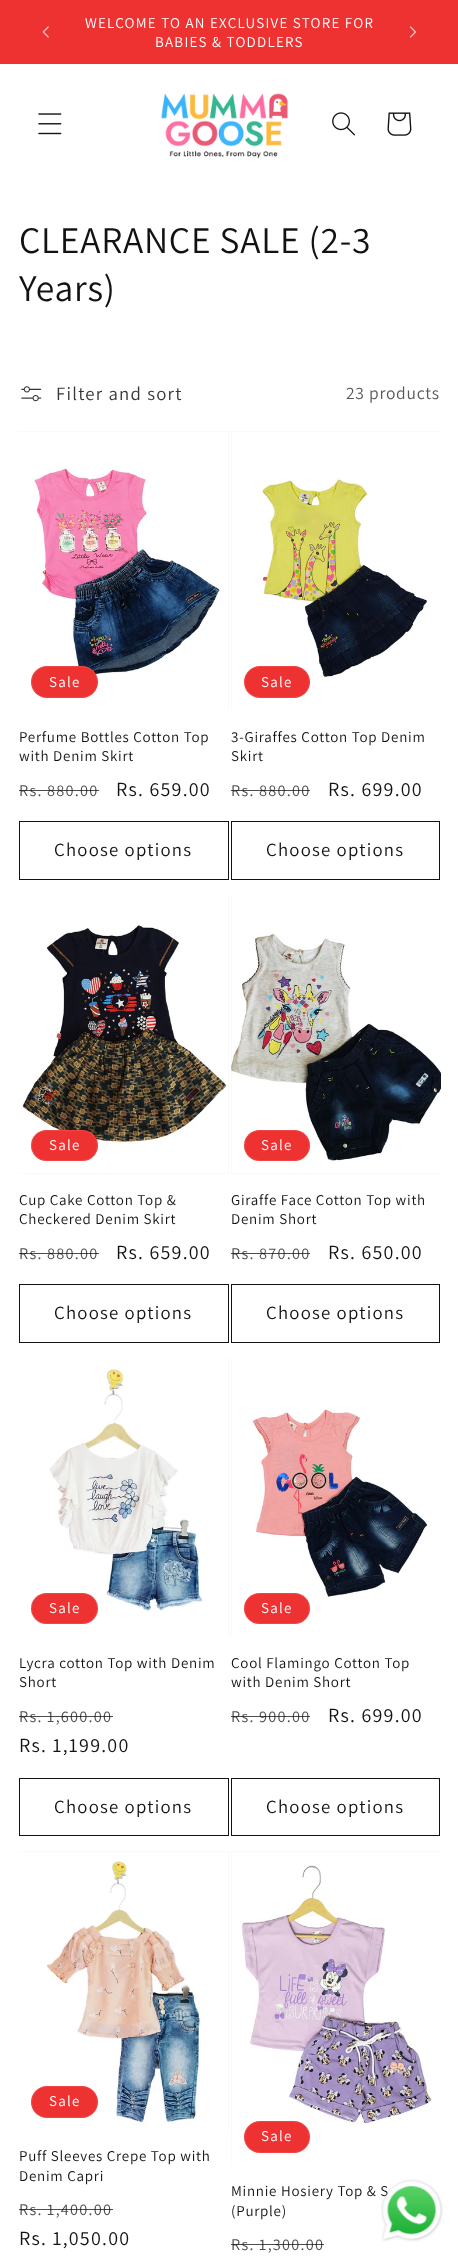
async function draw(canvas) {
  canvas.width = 458;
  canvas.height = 2257;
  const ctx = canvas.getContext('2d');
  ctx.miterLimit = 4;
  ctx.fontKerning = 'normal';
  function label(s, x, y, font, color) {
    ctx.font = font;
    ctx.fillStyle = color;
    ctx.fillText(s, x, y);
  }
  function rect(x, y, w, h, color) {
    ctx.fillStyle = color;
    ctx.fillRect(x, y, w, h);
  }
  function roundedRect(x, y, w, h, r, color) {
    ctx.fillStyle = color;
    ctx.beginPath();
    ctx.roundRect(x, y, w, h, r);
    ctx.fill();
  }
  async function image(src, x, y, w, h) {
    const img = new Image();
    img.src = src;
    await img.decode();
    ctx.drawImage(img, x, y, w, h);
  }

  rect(0, 0, 458, 2257, '#fff');
  rect(0, 0, 458, 64, '#ee3131');
  await image('assets/img1.png', 42, 26, 7, 12);
  ctx.letterSpacing = '1.25px';
  label('WELCOME TO AN EXCLUSIVE STORE FOR', 85, 28, '15px Assistant', '#fff');
  label('BABIES & TODDLERS', 155, 47, '15px Assistant', '#fff');
  await image('assets/img2.png', 410, 26, 6, 12);
  await image('assets/img3.png', 38, 113, 24, 22);
  await image('assets/img4.png', 160, 93, 128, 66);
  await image('assets/img5.png', 332, 112, 23, 24);
  await image('assets/img6.png', 387, 112, 25, 24);
  ctx.letterSpacing = '0.75px';
  label('CLEARANCE SALE (2-3', 19, 253, '37.5px Assistant', '#121212');
  label('Years)', 19, 301, '37.5px Assistant', '#121212');
  await image('assets/img7.png', 21, 386, 21, 16);
  ctx.letterSpacing = '1.25px';
  label('Filter and sort', 56, 400, '18.75px Assistant', '#363636');
  ctx.letterSpacing = '0.75px';
  label('23 products', 346, 399, '17.5px Assistant', '#595959');
  rect(19, 431, 210, 279, '#f3f3f3');
  await image('assets/img8.png', 19, 431, 210, 279);
  roundedRect(31, 666, 67, 32, 16, '#ee3131');
  ctx.beginPath();
  ctx.roundRect(31.5, 666.5, 66, 31, 15.5);
  ctx.strokeStyle = '#ffffff1a';
  ctx.stroke();
  ctx.letterSpacing = '1.25px';
  label('Sale', 49, 687, '15px Assistant', '#fff');
  ctx.letterSpacing = '0.75px';
  label('Perfume Bottles Cotton Top', 19, 742, '15px Assistant', '#121212');
  label('with Denim Skirt', 19, 761, '15px Assistant', '#121212');
  ctx.letterSpacing = '1.25px';
  label('Rs. 880.00', 19, 796, '16.25px Assistant', '#4d4d4d');
  rect(19, 790, 80, 1, '#121212bf');
  label('Rs. 659.00', 116, 796, '20px Assistant', '#121212');
  ctx.strokeStyle = '#121212';
  ctx.strokeRect(19.5, 821.5, 209, 58);
  label('Choose options', 54, 856, '18.75px Assistant', '#121212');
  rect(231, 431, 209, 279, '#f3f3f3');
  await image('assets/img9.png', 231, 431, 209, 279);
  roundedRect(244, 666, 66, 32, 16, '#ee3131');
  ctx.beginPath();
  ctx.roundRect(244.5, 666.5, 65, 31, 15.5);
  ctx.strokeStyle = '#ffffff1a';
  ctx.stroke();
  label('Sale', 261, 687, '15px Assistant', '#fff');
  ctx.letterSpacing = '0.75px';
  label('3-Giraffes Cotton Top Denim', 231, 742, '15px Assistant', '#121212');
  label('Skirt', 231, 761, '15px Assistant', '#121212');
  ctx.letterSpacing = '1.25px';
  label('Rs. 880.00', 231, 796, '16.25px Assistant', '#4d4d4d');
  rect(231, 790, 79, 1, '#121212bf');
  label('Rs. 699.00', 328, 796, '20px Assistant', '#121212');
  ctx.strokeStyle = '#121212';
  ctx.strokeRect(231.5, 821.5, 208, 58);
  label('Choose options', 266, 856, '18.75px Assistant', '#121212');
  rect(19, 895, 210, 279, '#f3f3f3');
  await image('assets/img10.png', 19, 895, 210, 279);
  roundedRect(31, 1130, 67, 31, 15.5, '#ee3131');
  ctx.beginPath();
  ctx.roundRect(31.5, 1130.5, 66, 30, 15);
  ctx.strokeStyle = '#ffffff1a';
  ctx.stroke();
  label('Sale', 49, 1150, '15px Assistant', '#fff');
  ctx.letterSpacing = '0.75px';
  label('Cup Cake Cotton Top &', 19, 1205, '15px Assistant', '#121212');
  label('Checkered Denim Skirt', 19, 1224, '15px Assistant', '#121212');
  ctx.letterSpacing = '1.25px';
  label('Rs. 880.00', 19, 1259, '16.25px Assistant', '#4d4d4d');
  rect(19, 1253, 80, 1, '#121212bf');
  label('Rs. 659.00', 116, 1259, '20px Assistant', '#121212');
  ctx.strokeStyle = '#121212';
  ctx.strokeRect(19.5, 1284.5, 209, 58);
  label('Choose options', 54, 1319, '18.75px Assistant', '#121212');
  rect(231, 895, 209, 279, '#f3f3f3');
  await image('assets/img11.png', 231, 895, 210, 279);
  roundedRect(244, 1130, 66, 31, 15.5, '#ee3131');
  ctx.beginPath();
  ctx.roundRect(244.5, 1130.5, 65, 30, 15);
  ctx.strokeStyle = '#ffffff1a';
  ctx.stroke();
  label('Sale', 261, 1150, '15px Assistant', '#fff');
  ctx.letterSpacing = '0.75px';
  label('Giraffe Face Cotton Top with', 231, 1205, '15px Assistant', '#121212');
  label('Denim Short', 231, 1224, '15px Assistant', '#121212');
  ctx.letterSpacing = '1.25px';
  label('Rs. 870.00', 231, 1259, '16.25px Assistant', '#4d4d4d');
  rect(231, 1253, 79, 1, '#121212bf');
  label('Rs. 650.00', 328, 1259, '20px Assistant', '#121212');
  ctx.strokeStyle = '#121212';
  ctx.strokeRect(231.5, 1284.5, 208, 58);
  label('Choose options', 266, 1319, '18.75px Assistant', '#121212');
  rect(228, 1358, 1, 278, '#f3f3f3');
  await image('assets/img12.png', 19, 1358, 210, 278);
  roundedRect(31, 1593, 67, 31, 15.5, '#ee3131');
  ctx.beginPath();
  ctx.roundRect(31.5, 1593.5, 66, 30, 15);
  ctx.strokeStyle = '#ffffff1a';
  ctx.stroke();
  label('Sale', 49, 1613, '15px Assistant', '#fff');
  ctx.letterSpacing = '0.75px';
  label('Lycra cotton Top with Denim', 19, 1668, '15px Assistant', '#121212');
  label('Short', 19, 1687, '15px Assistant', '#121212');
  ctx.letterSpacing = '1.25px';
  label('Rs. 1,600.00', 19, 1722, '16.25px Assistant', '#4d4d4d');
  rect(19, 1716, 94, 1, '#121212bf');
  label('Rs. 1,199.00', 19, 1752, '20px Assistant', '#121212');
  ctx.strokeStyle = '#121212';
  ctx.strokeRect(19.5, 1778.5, 209, 57);
  label('Choose options', 54, 1813, '18.75px Assistant', '#121212');
  rect(231, 1358, 1, 278, '#f3f3f3');
  await image('assets/img13.png', 231, 1358, 209, 278);
  roundedRect(244, 1593, 66, 31, 15.5, '#ee3131');
  ctx.beginPath();
  ctx.roundRect(244.5, 1593.5, 65, 30, 15);
  ctx.strokeStyle = '#ffffff1a';
  ctx.stroke();
  label('Sale', 261, 1613, '15px Assistant', '#fff');
  ctx.letterSpacing = '0.75px';
  label('Cool Flamingo Cotton Top', 231, 1668, '15px Assistant', '#121212');
  label('with Denim Short', 231, 1687, '15px Assistant', '#121212');
  ctx.letterSpacing = '1.25px';
  label('Rs. 900.00', 231, 1722, '16.25px Assistant', '#4d4d4d');
  rect(231, 1716, 79, 1, '#121212bf');
  label('Rs. 699.00', 328, 1722, '20px Assistant', '#121212');
  ctx.strokeStyle = '#121212';
  ctx.strokeRect(231.5, 1778.5, 208, 57);
  label('Choose options', 266, 1813, '18.75px Assistant', '#121212');
  rect(19, 1851, 210, 279, '#f3f3f3');
  await image('assets/img14.png', 19, 1851, 210, 279);
  roundedRect(31, 2086, 67, 32, 16, '#ee3131');
  ctx.beginPath();
  ctx.roundRect(31.5, 2086.5, 66, 31, 15.5);
  ctx.strokeStyle = '#ffffff1a';
  ctx.stroke();
  label('Sale', 49, 2106, '15px Assistant', '#fff');
  ctx.letterSpacing = '0.75px';
  label('Puff Sleeves Crepe Top with', 19, 2161, '15px Assistant', '#121212');
  label('Denim Capri', 19, 2181, '15px Assistant', '#121212');
  ctx.letterSpacing = '1.25px';
  label('Rs. 1,400.00', 19, 2215, '16.25px Assistant', '#4d4d4d');
  rect(19, 2209, 94, 1, '#121212bf');
  label('Rs. 1,050.00', 19, 2245, '20px Assistant', '#121212');
  rect(231, 1851, 209, 314, '#f3f3f3');
  await image('assets/img15.png', 231, 1851, 209, 314);
  roundedRect(244, 2121, 66, 32, 16, '#ee3131');
  ctx.beginPath();
  ctx.roundRect(244.5, 2121.5, 65, 31, 15.5);
  ctx.stroke();
  label('Sale', 261, 2141, '15px Assistant', '#fff');
  ctx.letterSpacing = '0.75px';
  label('Minnie Hosiery Top & S', 231, 2196, '15px Assistant', '#121212');
  label('(Purple)', 231, 2216, '15px Assistant', '#121212');
  ctx.letterSpacing = '1.25px';
  label('Rs. 1,300.00', 231, 2250, '16.25px Assistant', '#4d4d4d');
  rect(231, 2244, 93, 1, '#121212bf');
  await image('assets/img16.png', 381, 2179, 62, 63);
}

draw(document.querySelector('canvas'));
